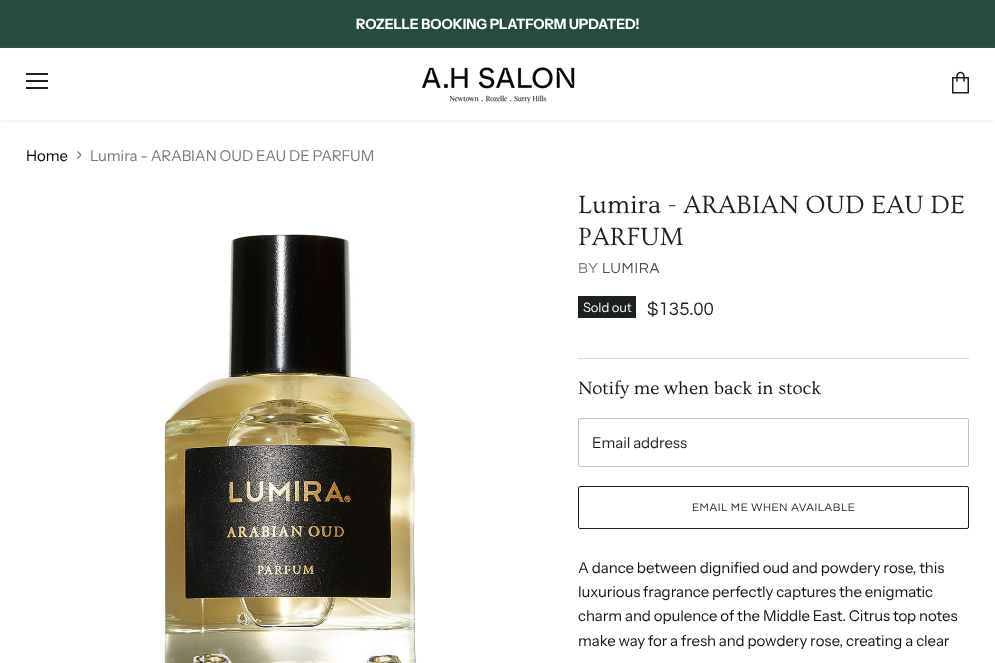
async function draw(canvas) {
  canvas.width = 995;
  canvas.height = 663;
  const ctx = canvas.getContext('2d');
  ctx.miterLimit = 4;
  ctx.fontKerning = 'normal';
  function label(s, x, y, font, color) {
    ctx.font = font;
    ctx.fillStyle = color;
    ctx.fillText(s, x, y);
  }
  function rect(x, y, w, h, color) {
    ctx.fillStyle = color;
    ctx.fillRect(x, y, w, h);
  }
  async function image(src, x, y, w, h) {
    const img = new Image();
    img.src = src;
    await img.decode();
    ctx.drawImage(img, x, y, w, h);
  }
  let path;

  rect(0, 0, 995, 663, '#fff');
  rect(0, 0, 995, 48, '#244d3f');
  ctx.letterSpacing = '-0.07px';
  label('ROZELLE BOOKING PLATFORM UPDATED!', 356, 29, 'bold 14.1px Instrument Sans', '#fff');
  ctx.save();
  path = new Path2D('M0 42H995V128H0ZM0 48H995V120H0Z');
  ctx.clip(path, 'evenodd');
  ctx.fillStyle = '#bac0be40';
  ctx.filter = 'blur(2px)';
  ctx.beginPath();
  ctx.rect(0, 49, 995, 72);
  ctx.fill();
  ctx.filter = 'none';
  ctx.restore();
  rect(26, 73, 22, 2, '#1b2120');
  rect(26, 80, 22, 2, '#1b2120');
  rect(26, 87, 22, 2, '#1b2120');
  await image('assets/img1.png', 421, 67, 154, 36);
  await image('assets/img2.png', 952, 71, 17, 23);
  label('Home', 26, 161, '15px Instrument Sans', '#000');
  ctx.save();
  path = new Path2D('M76.5 159V151H81.5V159Z');
  ctx.clip(path);
  path = new Path2D('M77.5 158.5L81 155L77.5 151.5');
  ctx.strokeStyle = '#757977';
  ctx.lineWidth = 1.2;
  ctx.stroke(path);
  ctx.restore();
  label('Lumira - ARABIAN OUD EAU DE PARFUM', 90, 161, '15px Instrument Sans', '#757977');
  await image('assets/img3.png', 163, 234, 254, 429);
  ctx.letterSpacing = '0px';
  label('Lumira - ARABIAN OUD EAU DE', 578, 213, '26.25px Ovo', '#1b2120');
  label('PARFUM', 578, 245, '26.25px Ovo', '#1b2120');
  ctx.letterSpacing = '0.75px';
  label('BY', 578, 273, '15px Questrial', '#757977');
  label('LUMIRA', 602, 273, '15px Questrial', '#494e4d');
  rect(578, 296, 58, 22, '#1b2120');
  ctx.letterSpacing = '-0.07px';
  label('Sold out', 583, 312, '13px Instrument Sans', '#fff');
  ctx.letterSpacing = '0px';
  label('$135.00', 647, 315, '18.75px Questrial', '#1b2120');
  rect(578, 358, 391, 1, '#d9d9d9');
  label('Notify me when back in stock', 578, 394, '18.75px Ovo', '#111');
  ctx.beginPath();
  ctx.roundRect(578.5, 418.5, 390, 48, 1.5);
  ctx.strokeStyle = '#c1c1c1';
  ctx.stroke();
  ctx.letterSpacing = '-0.07px';
  label('Email address', 592, 448, '15px Instrument Sans', '#1b2120');
  ctx.beginPath();
  ctx.roundRect(578.5, 486.5, 390, 42, 1.5);
  ctx.strokeStyle = '#1b2120';
  ctx.stroke();
  ctx.letterSpacing = '0.6px';
  label('EMAIL ME WHEN AVAILABLE', 692, 511, '11.5px Questrial', '#1b2120');
  ctx.letterSpacing = '-0.07px';
  label('A dance between dignified oud and powdery rose, this', 578, 573, '15px Instrument Sans', '#111');
  label('luxurious fragrance perfectly captures the enigmatic', 578, 597, '15px Instrument Sans', '#111');
  label('charm and opulence of the Middle East. Citrus top notes', 578, 621, '15px Instrument Sans', '#111');
  label('make way for a fresh and powdery rose, creating a clear', 578, 646, '15px Instrument Sans', '#111');
}

draw(document.querySelector('canvas'));
